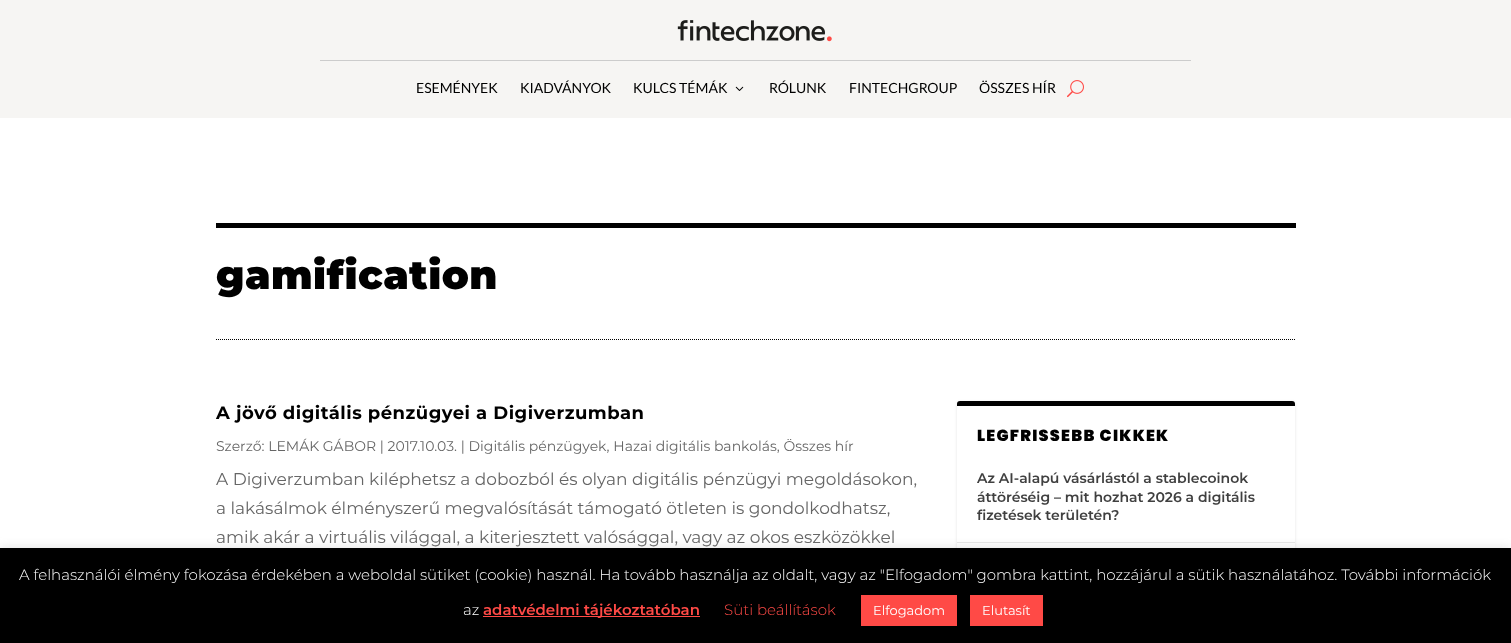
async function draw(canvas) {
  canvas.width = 1511;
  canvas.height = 643;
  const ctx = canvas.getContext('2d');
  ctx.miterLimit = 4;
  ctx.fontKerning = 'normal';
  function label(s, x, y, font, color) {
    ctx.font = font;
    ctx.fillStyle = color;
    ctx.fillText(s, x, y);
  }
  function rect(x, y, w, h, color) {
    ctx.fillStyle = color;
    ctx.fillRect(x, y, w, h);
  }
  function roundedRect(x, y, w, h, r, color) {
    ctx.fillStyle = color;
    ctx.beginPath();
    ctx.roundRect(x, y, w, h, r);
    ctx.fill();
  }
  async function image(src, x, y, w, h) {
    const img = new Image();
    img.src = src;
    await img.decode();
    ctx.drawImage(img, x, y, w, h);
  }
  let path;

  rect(0, 0, 1511, 643, '#fff');
  rect(0, 0, 1511, 118, '#f6f5f3');
  await image('assets/img1.png', 677, 20, 155, 22);
  rect(320, 60, 871, 1, '#ccc');
  label('ESEMÉNYEK', 416, 93, '14px Lato', '#000');
  label('KIADVÁNYOK', 520, 93, '14px Lato', '#000');
  label('KULCS TÉMÁK', 633, 93, '14px Lato', '#000');
  await image('assets/img2.png', 735, 86, 9, 5);
  label('RÓLUNK', 769, 93, '14px Lato', '#000');
  label('FINTECHGROUP', 849, 93, '14px Lato', '#000');
  label('ÖSSZES HÍR', 979, 93, '14px Lato', '#000');
  await image('assets/img3.png', 1067, 80, 17, 18);
  rect(216, 223, 1080, 5, '#000');
  path = new Path2D('M216 339.5H1296');
  ctx.strokeStyle = '#000';
  ctx.setLineDash([1, 1]);
  ctx.stroke(path);
  ctx.letterSpacing = '0.5px';
  label('gamification', 216, 289, '100 40px Montserrat', '#000');
  label('A jövő digitális pénzügyei a Digiverzumban', 216, 419, '100 18px "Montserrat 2"', '#000');
  ctx.letterSpacing = '0px';
  label('Szerző: LEMÁK GÁBOR | 2017.10.03. | Digitális pénzügyek, Hazai digitális bankolás, Összes hír', 216, 451, '100 14px "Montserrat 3"', '#666');
  label('A Digiverzumban kiléphetsz a dobozból és olyan digitális pénzügyi megoldásokon,', 216, 485, '100 17px "Montserrat 3"', '#666');
  label('a lakásálmok élményszerű megvalósítását támogató ötleten is gondolkodhatsz,', 216, 514, '100 17px "Montserrat 3"', '#666');
  label('amik akár a virtuális világgal, a kiterjesztett valósággal, vagy az okos eszközökkel', 216, 543, '100 17px "Montserrat 3"', '#666');
  ctx.fillStyle = '#0000001a';
  ctx.filter = 'blur(1.5px)';
  ctx.beginPath();
  ctx.roundRect(957, 402, 338, 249, 3);
  ctx.fill();
  ctx.filter = 'none';
  roundedRect(957, 401, 338, 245, 3, '#fff');
  ctx.fillStyle = '#000';
  ctx.beginPath();
  ctx.roundRect(957, 401, 338, 5, [3, 3, 0, 0]);
  ctx.fill();
  ctx.letterSpacing = '1.25px';
  label('LEGFRISSEBB CIKKEK', 977, 441, '900 16px Poppins', '#000');
  rect(957, 542, 338, 1, '#e6e6e6');
  ctx.letterSpacing = '0px';
  label('Az AI-alapú vásárlástól a stablecoinok', 977, 483, '100 14px "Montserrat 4"', '#404040');
  label('áttöréséig – mit hozhat 2026 a digitális', 977, 502, '100 14px "Montserrat 4"', '#404040');
  label('fizetések területén?', 977, 520, '100 14px "Montserrat 4"', '#404040');
  ctx.fillStyle = '#acabab4d';
  ctx.filter = 'blur(5px)';
  ctx.beginPath();
  ctx.rect(0, 547, 1511, 95);
  ctx.fill();
  ctx.filter = 'none';
  rect(0, 548, 1511, 95, '#000');
  label('A felhasználói élmény fokozása érdekében a weboldal sütiket (cookie) használ. Ha tovább használja az oldalt, vagy az "Elfogadom" gombra kattint, hozzájárul a sütik használatához. További információk', 19, 580, '100 15px "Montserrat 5"', '#fff');
  label('az', 463, 615, '100 15px "Montserrat 5"', '#fff');
  rect(483, 616, 217, 1, '#ff4a46');
  label('adatvédelmi tájékoztatóban', 483, 615, '100 15px "Montserrat 4"', '#ff4a46');
  label('Süti beállítások', 724, 615, '100 15px "Montserrat 5"', '#ff4a46');
  rect(861, 595, 96, 31, '#ff4a46');
  label('Elfogadom', 873, 615, '100 13px "Montserrat 3"', '#fff');
  rect(970, 595, 73, 31, '#ff4a46');
  label('Elutasít', 982, 615, '100 13px "Montserrat 3"', '#fff');
}

draw(document.querySelector('canvas'));
